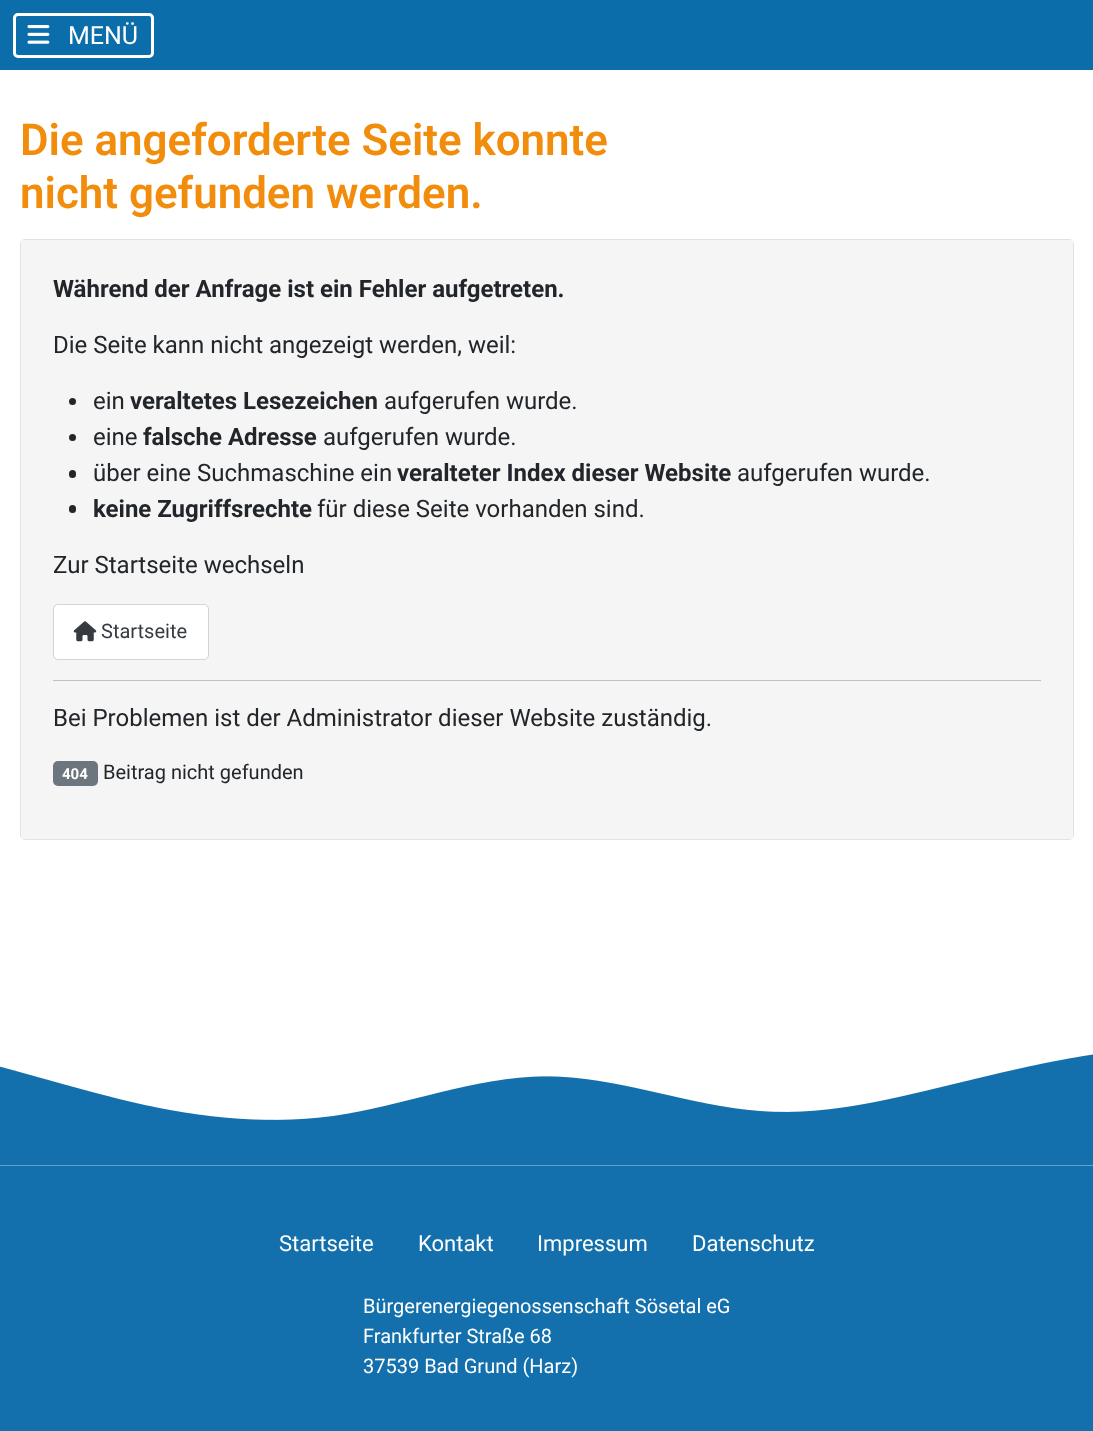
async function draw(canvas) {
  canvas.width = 1093;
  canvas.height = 1431;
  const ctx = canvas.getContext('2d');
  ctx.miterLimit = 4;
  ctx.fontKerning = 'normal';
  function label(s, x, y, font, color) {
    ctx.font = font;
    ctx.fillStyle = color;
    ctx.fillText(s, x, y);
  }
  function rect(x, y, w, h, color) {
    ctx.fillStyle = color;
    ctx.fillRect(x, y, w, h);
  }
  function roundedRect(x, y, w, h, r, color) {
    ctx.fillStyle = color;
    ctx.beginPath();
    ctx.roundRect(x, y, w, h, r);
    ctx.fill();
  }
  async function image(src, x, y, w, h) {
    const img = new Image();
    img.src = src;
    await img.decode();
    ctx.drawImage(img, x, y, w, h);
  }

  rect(0, 0, 1093, 1431, '#fff');
  rect(0, 0, 1093, 70, '#0b6eaa');
  ctx.beginPath();
  ctx.roundRect(14.5, 14.5, 138, 42, 3.5);
  ctx.strokeStyle = '#fff';
  ctx.lineWidth = 3;
  ctx.stroke();
  await image('assets/img1.png', 27, 25, 23, 19);
  label('MENÜ', 68, 44, '25px Roboto', '#fff');
  label('Die angeforderte Seite konnte', 20, 155, '600 43.9px Roboto', '#f28c0b');
  label('nicht gefunden werden.', 20, 208, '600 43.9px Roboto', '#f28c0b');
  ctx.beginPath();
  ctx.roundRect(20.5, 239.5, 1053, 600, 4.5);
  ctx.strokeStyle = '#dfe3e7';
  ctx.lineWidth = 1;
  ctx.stroke();
  rect(21, 240, 1052, 599, '#f5f5f5');
  label('Während der Anfrage ist ein Fehler aufgetreten.', 53, 297, 'bold 24px Roboto', '#22262a');
  label('Die Seite kann nicht angezeigt werden, weil:', 53, 353, '24px Roboto', '#22262a');
  ctx.beginPath();
  ctx.arc(72.5, 401.5, 3.5, 0, 2 * Math.PI);
  ctx.fill();
  label('ein', 93, 409, '24px Roboto', '#22262a');
  label('veraltetes Lesezeichen', 130, 409, 'bold 24px Roboto', '#22262a');
  label('aufgerufen wurde.', 384, 409, '24px Roboto', '#22262a');
  ctx.beginPath();
  ctx.arc(72.5, 437.5, 3.5, 0, 2 * Math.PI);
  ctx.fill();
  label('eine', 93, 445, '24px Roboto', '#22262a');
  label('falsche Adresse', 143, 445, 'bold 24px Roboto', '#22262a');
  label('aufgerufen wurde.', 323, 445, '24px Roboto', '#22262a');
  roundedRect(69, 470, 7, 8, 3.5, '#22262a');
  label('über eine Suchmaschine ein', 93, 481, '24px Roboto', '#22262a');
  label('veralteter Index dieser Website', 397, 481, 'bold 24px Roboto', '#22262a');
  label('aufgerufen wurde.', 737, 481, '24px Roboto', '#22262a');
  roundedRect(69, 505, 7, 8, 3.5, '#22262a');
  label('keine Zugriffsrechte', 93, 517, 'bold 24px Roboto', '#22262a');
  label('für diese Seite vorhanden sind.', 317, 517, '24px Roboto', '#22262a');
  label('Zur Startseite wechseln', 53, 573, '24px Roboto', '#22262a');
  ctx.fillStyle = '#fff';
  ctx.beginPath();
  ctx.roundRect(53.5, 604.5, 155, 55, 4.5);
  ctx.fill();
  ctx.strokeStyle = '#ced4da';
  ctx.stroke();
  await image('assets/img2.png', 73, 621, 24, 21);
  label('Startseite', 101, 638, '20px Roboto', '#353b41');
  rect(53, 680, 988, 1, '#c0c1c2');
  label('Bei Problemen ist der Administrator dieser Website zuständig.', 53, 726, '24px Roboto', '#22262a');
  roundedRect(53, 761, 45, 25, 5, '#6d757e');
  label('404', 62, 779, 'bold 15px Roboto', '#fff');
  label('Beitrag nicht gefunden', 103, 779, '20px Roboto', '#22262a');
  rect(0, 1166, 1093, 265, '#1370ac');
  await image('assets/img3.png', 0, 1054, 1093, 112);
  label('Startseite', 279, 1251, '22px Roboto', '#fff');
  label('Kontakt', 418, 1251, '22px Roboto', '#fff');
  label('Impressum', 537, 1251, '22px Roboto', '#fff');
  label('Datenschutz', 692, 1251, '22px Roboto', '#fff');
  label('Bürgerenergiegenossenschaft Sösetal eG', 363, 1313, '20px Roboto', '#fff');
  label('Frankfurter Straße 68', 363, 1343, '20px Roboto', '#fff');
  label('37539 Bad Grund (Harz)', 363, 1373, '20px Roboto', '#fff');
}

draw(document.querySelector('canvas'));
